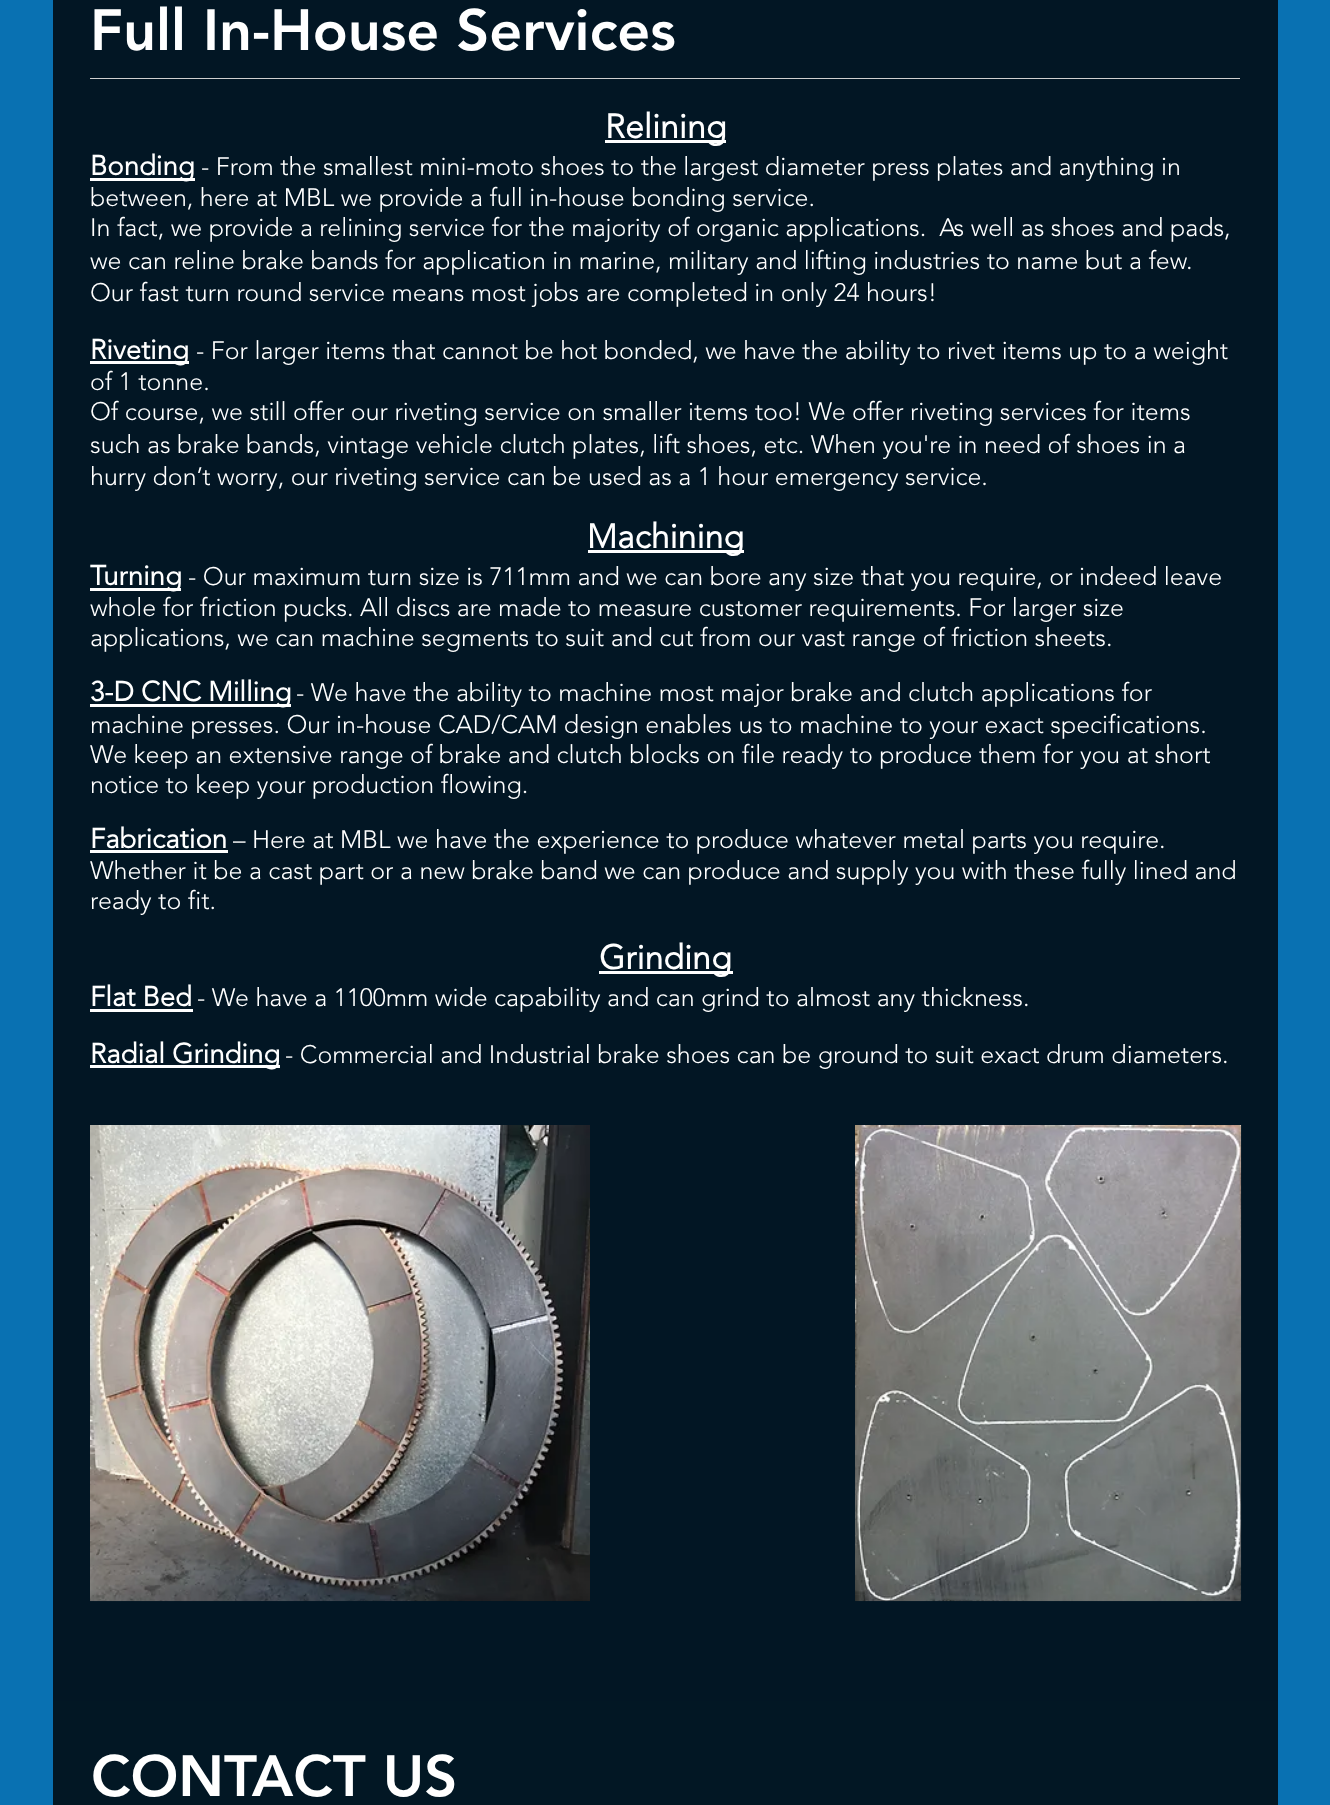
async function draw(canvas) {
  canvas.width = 1330;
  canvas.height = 1805;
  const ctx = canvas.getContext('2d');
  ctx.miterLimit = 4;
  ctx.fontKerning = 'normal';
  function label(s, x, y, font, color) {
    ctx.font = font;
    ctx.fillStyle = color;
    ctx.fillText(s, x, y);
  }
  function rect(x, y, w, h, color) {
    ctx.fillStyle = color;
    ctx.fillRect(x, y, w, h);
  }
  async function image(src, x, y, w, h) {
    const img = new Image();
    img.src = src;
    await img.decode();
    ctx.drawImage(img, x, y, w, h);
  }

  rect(0, 0, 1330, 1805, '#0971b2');
  rect(53, 0, 1225, 1701, '#021624');
  label('Full In-House Services', 90, 50, '900 57.5px "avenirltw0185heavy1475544"', '#fff');
  rect(90, 78, 1150, 1, '#cfcfcf');
  rect(605, 140, 121, 3, '#fff');
  label('Relining', 605, 138, 'bold 33.75px "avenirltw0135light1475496"', '#fff');
  rect(90, 178, 105, 3, '#fff');
  label('Bonding', 90, 175, 'bold 27.5px "avenirltw0135light1475496"', '#fff');
  label('- From the smallest mini-moto shoes to the largest diameter press plates and anything in', 201, 175, '300 25px "avenirltw0135light1475496"', '#fff');
  label('between, here at MBL we provide a full in-house bonding service.', 90, 206, '300 25px "avenirltw0135light1475496"', '#fff');
  label('In fact, we provide a relining service for the majority of organic applications.  As well as shoes and pads,', 90, 236, '300 25px "avenirltw0135light1475496"', '#fff');
  label('we can reline brake bands for application in marine, military and lifting industries to name but a few.', 90, 269, '300 25px "avenirltw0135light1475496"', '#fff');
  label('Our fast turn round service means most jobs are completed in only 24 hours!', 90, 301, '300 25px "avenirltw0135light1475496"', '#fff');
  rect(90, 361, 99, 3, '#fff');
  label('Riveting', 90, 359, 'bold 27.5px "avenirltw0135light1475496"', '#fff');
  label('- For larger items that cannot be hot bonded, we have the ability to rivet items up to a weight', 196, 359, '300 25px "avenirltw0135light1475496"', '#fff');
  label('of 1 tonne.', 90, 390, '300 25px "avenirltw0135light1475496"', '#fff');
  label('Of course, we still offer our riveting service on smaller items too! We offer riveting services for items', 90, 420, '300 25px "avenirltw0135light1475496"', '#fff');
  label('such as brake bands, vintage vehicle clutch plates, lift shoes, etc. When you\'re in need of shoes in a', 90, 453, '300 25px "avenirltw0135light1475496"', '#fff');
  label('hurry don’t worry, our riveting service can be used as a 1 hour emergency service.', 90, 485, '300 25px "avenirltw0135light1475496"', '#fff');
  rect(588, 550, 156, 3, '#fff');
  label('Machining', 587, 548, 'bold 33.75px "avenirltw0135light1475496"', '#fff');
  rect(90, 588, 91, 3, '#fff');
  label('Turning', 90, 585, 'bold 27.5px "avenirltw0135light1475496"', '#fff');
  label('- Our maximum turn size is 711mm and we can bore any size that you require, or indeed leave', 188, 585, '300 25px "avenirltw0135light1475496"', '#fff');
  label('whole for friction pucks. All discs are made to measure customer requirements. For larger size', 90, 616, '300 25px "avenirltw0135light1475496"', '#fff');
  label('applications, we can machine segments to suit and cut from our vast range of friction sheets.', 90, 646, '300 25px "avenirltw0135light1475496"', '#fff');
  rect(90, 704, 201, 3, '#fff');
  label('3-D CNC Milling', 90, 701, 'bold 27.5px "avenirltw0135light1475496"', '#fff');
  label('- We have the ability to machine most major brake and clutch applications for', 296, 701, '300 25px "avenirltw0135light1475496"', '#fff');
  label('machine presses. Our in-house CAD/CAM design enables us to machine to your exact specifications.', 90, 733, '300 25px "avenirltw0135light1475496"', '#fff');
  label('We keep an extensive range of brake and clutch blocks on file ready to produce them for you at short', 90, 763, '300 25px "avenirltw0135light1475496"', '#fff');
  label('notice to keep your production flowing.', 90, 793, '300 25px "avenirltw0135light1475496"', '#fff');
  label('Fabrication', 90, 848, 'bold 27.5px "avenirltw0135light1475496"', '#fff');
  label('– Here at MBL we have the experience to produce whatever metal parts you require.', 233, 848, '300 25px "avenirltw0135light1475496"', '#fff');
  rect(90, 850, 138, 3, '#fff');
  label('Whether it be a cast part or a new brake band we can produce and supply you with these fully lined and', 90, 879, '300 25px "avenirltw0135light1475496"', '#fff');
  label('ready to fit.', 90, 909, '300 25px "avenirltw0135light1475496"', '#fff');
  rect(599, 971, 134, 3, '#fff');
  label('Grinding', 599, 969, 'bold 33.75px "avenirltw0135light1475496"', '#fff');
  label('Flat Bed', 90, 1006, 'bold 27.5px "avenirltw0135light1475496"', '#fff');
  label('- We have a 1100mm wide capability and can grind to almost any thickness.', 197, 1006, '300 25px "avenirltw0135light1475496"', '#fff');
  rect(90, 1009, 103, 3, '#fff');
  rect(90, 1065, 190, 3, '#fff');
  label('Radial Grinding', 90, 1063, 'bold 27.5px "avenirltw0135light1475496"', '#fff');
  label('- Commercial and Industrial brake shoes can be ground to suit exact drum diameters.', 285, 1063, '300 25px "avenirltw0135light1475496"', '#fff');
  await image('assets/img1.png', 90, 1125, 500, 477);
  await image('assets/img2.png', 855, 1125, 387, 477);
  rect(53, 1701, 1225, 104, '#021724');
  label('CONTACT US', 91, 1796, '900 57.5px "avenirltw0185heavy1475544"', '#fff');
}

draw(document.querySelector('canvas'));
